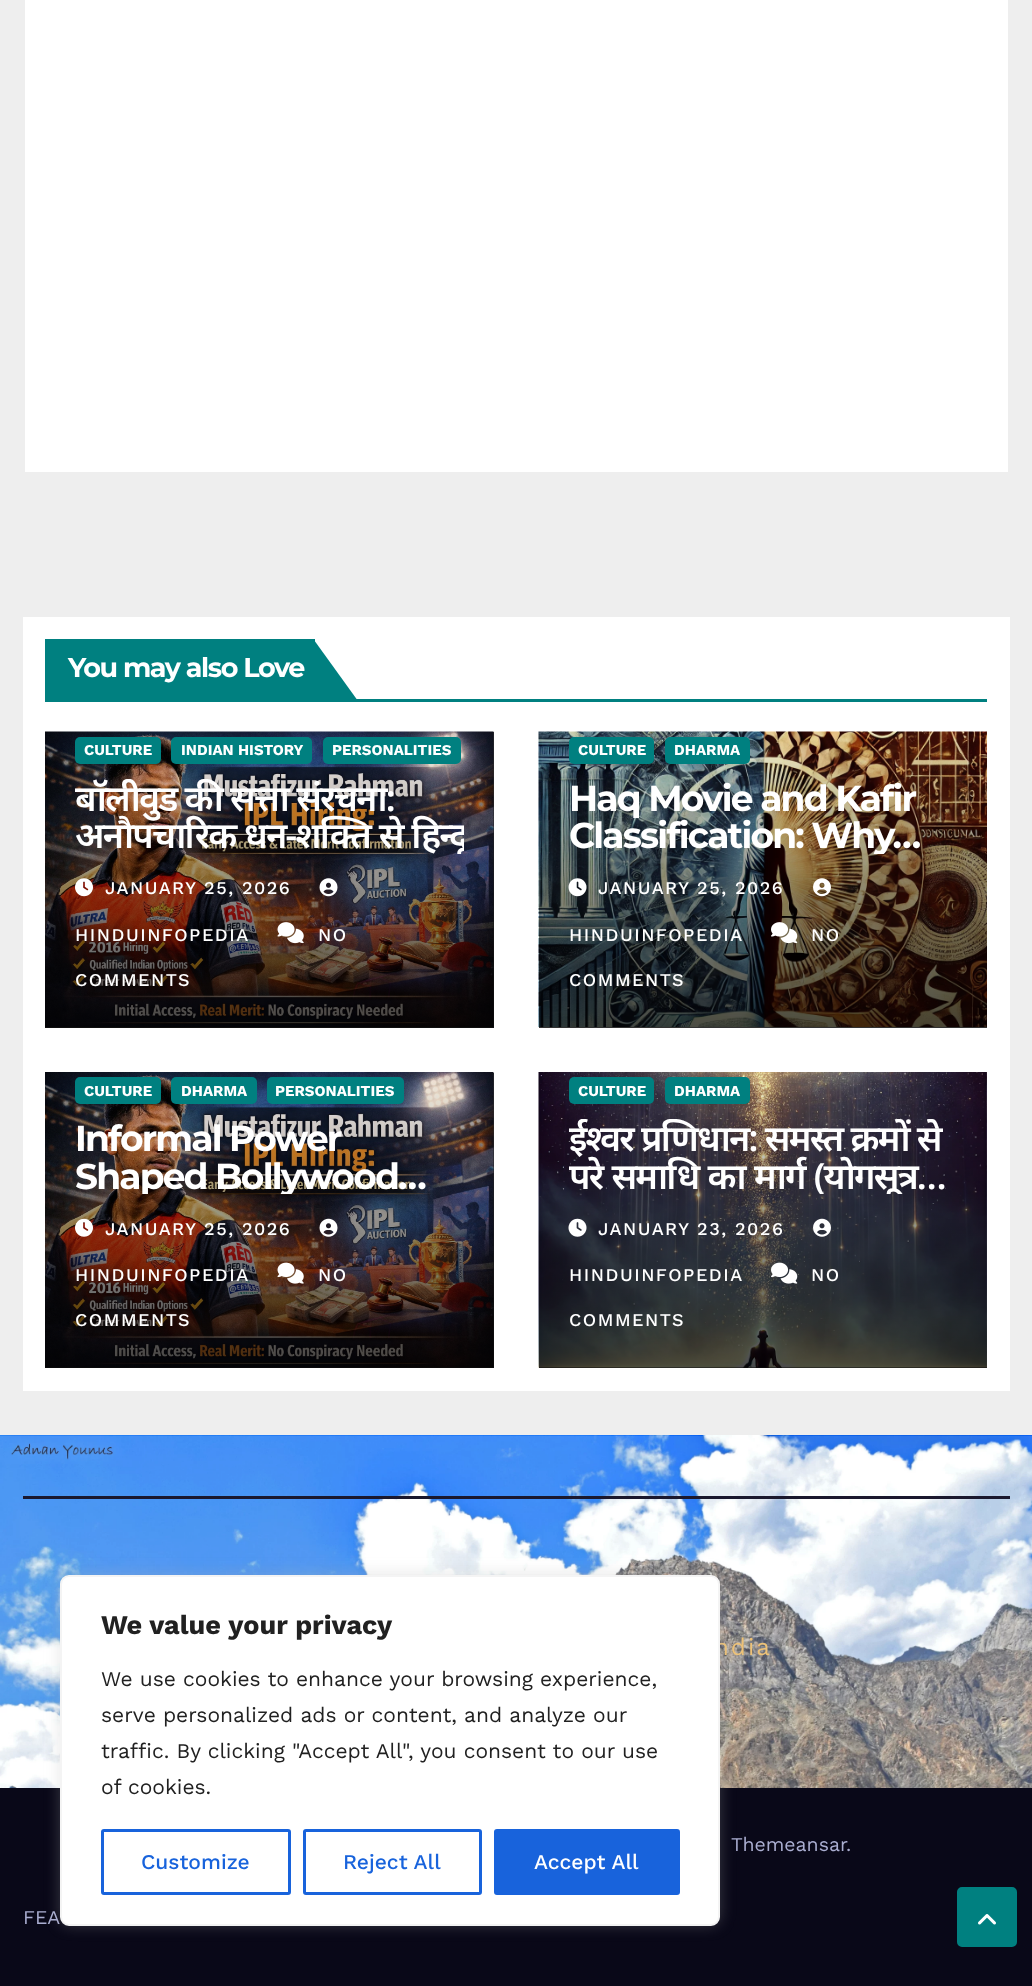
async function draw(canvas) {
  canvas.width = 1032;
  canvas.height = 1986;
  const ctx = canvas.getContext('2d');
  ctx.miterLimit = 4;
  ctx.fontKerning = 'normal';
  function label(s, x, y, font, color) {
    ctx.font = font;
    ctx.fillStyle = color;
    ctx.fillText(s, x, y);
  }
  function rect(x, y, w, h, color) {
    ctx.fillStyle = color;
    ctx.fillRect(x, y, w, h);
  }
  function roundedRect(x, y, w, h, r, color) {
    ctx.fillStyle = color;
    ctx.beginPath();
    ctx.roundRect(x, y, w, h, r);
    ctx.fill();
  }
  async function image(src, x, y, w, h) {
    const img = new Image();
    img.src = src;
    await img.decode();
    ctx.drawImage(img, x, y, w, h);
  }
  let gradient, path;

  rect(0, 0, 1032, 1986, '#eee');
  rect(25, 0, 983, 472, '#fff');
  rect(23, 617, 987, 774, '#fff');
  rect(45, 699, 942, 3, '#008080');
  rect(45, 639, 270, 60, '#008080');
  ctx.letterSpacing = '-1.4px';
  label('You may also Love', 68, 677, 'bold 27px Montserrat', '#fff');
  ctx.fillStyle = '#008080';
  path = new Path2D('M314 701V640L358 701Z');
  ctx.fill(path);
  rect(45, 732, 449, 296, '#333');
  await image('assets/img1.png', 45, 731, 449, 296);
  gradient = ctx.createLinearGradient(269, 722, 269, 1028);
  gradient.addColorStop(0, '#00000000');
  gradient.addColorStop(0.5, '#00000066');
  gradient.addColorStop(1, '#000000b3');
  ctx.fillStyle = gradient;
  ctx.fillRect(45, 732, 449, 296);
  roundedRect(75, 737, 86, 27, 5, '#008080');
  ctx.letterSpacing = '0px';
  label('CULTURE', 84, 755, 'bold 15px Work Sans', '#fff');
  roundedRect(171, 737, 141, 27, 5, '#008080');
  label('INDIAN HISTORY', 181, 755, 'bold 15px Work Sans', '#fff');
  roundedRect(323, 737, 138, 27, 5, '#008080');
  label('PERSONALITIES', 332, 755, 'bold 15px Work Sans', '#fff');
  ctx.save();
  ctx.beginPath();
  ctx.rect(75, 779, 389, 75);
  ctx.clip();
  ctx.letterSpacing = '-1.8px';
  ctx.wordSpacing = '0.5px';
  label('बॉलीवुड की सत्ता संरचना:', 75, 811, '600 36px Noto Sans', '#fff');
  ctx.wordSpacing = '1px';
  label('अनौपचारिक धन-शक्ति से हिन्दू-', 75, 848, '600 36px Noto Sans', '#fff');
  ctx.restore();
  await image('assets/img2.png', 75, 878, 18, 19);
  ctx.letterSpacing = '1.5px';
  label('JANUARY 25, 2026', 105, 894, '500 18px Work Sans', '#fff');
  await image('assets/img3.png', 319, 878, 19, 19);
  label('HINDUINFOPEDIA', 75, 941, '500 18px Work Sans', '#fff');
  await image('assets/img4.png', 277, 922, 27, 22);
  label('NO', 318, 941, '500 18px Work Sans', '#fff');
  label('COMMENTS', 75, 986, '500 18px Work Sans', '#fff');
  rect(539, 1027, 448, 1, '#333');
  await image('assets/img5.png', 538, 731, 449, 296);
  roundedRect(569, 737, 85, 27, 5, '#008080');
  ctx.letterSpacing = '0px';
  label('CULTURE', 578, 755, 'bold 15px Work Sans', '#fff');
  roundedRect(665, 737, 85, 27, 5, '#008080');
  label('DHARMA', 674, 755, 'bold 15px Work Sans', '#fff');
  ctx.letterSpacing = '-1.8px';
  label('Haq Movie and Kafir', 569, 811, 'bold 36px Montserrat', '#fff');
  ctx.save();
  ctx.beginPath();
  ctx.rect(569, 779, 388, 75);
  ctx.clip();
  label('Classification: Why…', 569, 848, 'bold 36px Montserrat', '#fff');
  ctx.restore();
  await image('assets/img6.png', 568, 878, 19, 19);
  ctx.letterSpacing = '1.5px';
  label('JANUARY 25, 2026', 598, 894, '500 18px Work Sans', '#fff');
  await image('assets/img7.png', 771, 922, 27, 22);
  label('NO', 811, 941, '500 18px Work Sans', '#fff');
  label('COMMENTS', 569, 986, '500 18px Work Sans', '#fff');
  await image('assets/img8.png', 813, 878, 18, 19);
  label('HINDUINFOPEDIA', 569, 941, '500 18px Work Sans', '#fff');
  rect(45, 1073, 449, 295, '#333');
  await image('assets/img9.png', 45, 1072, 449, 296);
  gradient = ctx.createLinearGradient(269, 1062, 269, 1368);
  gradient.addColorStop(0, '#00000000');
  gradient.addColorStop(0.5, '#00000066');
  gradient.addColorStop(1, '#000000b3');
  ctx.fillStyle = gradient;
  ctx.fillRect(45, 1073, 449, 295);
  roundedRect(75, 1077, 86, 27, 5, '#008080');
  ctx.letterSpacing = '0px';
  label('CULTURE', 84, 1096, 'bold 15px Work Sans', '#fff');
  roundedRect(171, 1077, 86, 27, 5, '#008080');
  label('DHARMA', 181, 1096, 'bold 15px Work Sans', '#fff');
  roundedRect(267, 1077, 137, 27, 5, '#008080');
  label('PERSONALITIES', 275, 1096, 'bold 15px Work Sans', '#fff');
  ctx.letterSpacing = '-1.8px';
  label('Informal Power', 75, 1151, 'bold 36px Montserrat', '#fff');
  ctx.save();
  ctx.beginPath();
  ctx.rect(75, 1119, 389, 75);
  ctx.clip();
  label('Shaped Bollywood…', 75, 1189, 'bold 36px Montserrat', '#fff');
  ctx.restore();
  await image('assets/img10.png', 75, 1218, 18, 19);
  ctx.letterSpacing = '1.5px';
  label('JANUARY 25, 2026', 105, 1235, '500 18px Work Sans', '#fff');
  await image('assets/img11.png', 319, 1218, 19, 19);
  label('HINDUINFOPEDIA', 75, 1281, '500 18px Work Sans', '#fff');
  await image('assets/img12.png', 277, 1262, 27, 22);
  label('NO', 318, 1281, '500 18px Work Sans', '#fff');
  label('COMMENTS', 75, 1326, '500 18px Work Sans', '#fff');
  rect(539, 1367, 448, 1, '#333');
  await image('assets/img13.png', 538, 1072, 449, 296);
  gradient = ctx.createLinearGradient(763, 1062, 763, 1368);
  gradient.addColorStop(0, '#00000000');
  gradient.addColorStop(0.5, '#00000066');
  gradient.addColorStop(1, '#000000b3');
  ctx.fillStyle = gradient;
  ctx.fillRect(539, 1073, 448, 295);
  roundedRect(569, 1077, 85, 27, 5, '#008080');
  ctx.letterSpacing = '0px';
  label('CULTURE', 578, 1096, 'bold 15px Work Sans', '#fff');
  roundedRect(665, 1077, 85, 27, 5, '#008080');
  label('DHARMA', 674, 1096, 'bold 15px Work Sans', '#fff');
  ctx.save();
  ctx.beginPath();
  ctx.rect(569, 1119, 388, 75);
  ctx.clip();
  ctx.letterSpacing = '-1.8px';
  ctx.wordSpacing = '0.5px';
  label('ईश्वर प्रणिधान: समस्त क्रमों से', 569, 1151, '600 36px Noto Sans', '#fff');
  ctx.wordSpacing = '1.5px';
  label('परे समाधि का मार्ग (योगसूत्र…', 569, 1189, '600 36px Noto Sans', '#fff');
  ctx.restore();
  await image('assets/img14.png', 568, 1218, 19, 19);
  ctx.letterSpacing = '1.5px';
  label('JANUARY 23, 2026', 598, 1235, '500 18px Work Sans', '#fff');
  await image('assets/img15.png', 771, 1262, 27, 22);
  label('NO', 811, 1281, '500 18px Work Sans', '#fff');
  label('COMMENTS', 569, 1326, '500 18px Work Sans', '#fff');
  await image('assets/img16.png', 813, 1218, 18, 19);
  label('HINDUINFOPEDIA', 569, 1281, '500 18px Work Sans', '#fff');
  await image('assets/img17.png', 0, 1435, 1032, 353);
  rect(23, 1496, 987, 3, '#1a182e');
  ctx.letterSpacing = '2px';
  label('ndia', 714, 1655, '24px Work Sans', '#edc278');
  rect(0, 1788, 1032, 198, '#090818');
  ctx.letterSpacing = '0px';
  label('Themeansar', 731, 1851, '19.5px Work Sans', '#aaaed1');
  label('.', 846, 1851, '19.5px Work Sans', '#aaaed1');
  label('FEA', 23, 1924, '19.5px Work Sans', '#aaaed1');
  ctx.fillStyle = '#008080';
  ctx.beginPath();
  ctx.roundRect(958.5, 1888.5, 57, 57, 3.5);
  ctx.fill();
  ctx.strokeStyle = '#008080';
  ctx.lineWidth = 3;
  ctx.stroke();
  await image('assets/img18.png', 978, 1914, 18, 11);
  ctx.fillStyle = '#acabab4d';
  ctx.filter = 'blur(7.5px)';
  ctx.beginPath();
  ctx.roundRect(60, 1574, 660, 351, 9);
  ctx.fill();
  ctx.filter = 'none';
  ctx.fillStyle = '#fff';
  ctx.beginPath();
  ctx.roundRect(61, 1576, 658, 349, 8);
  ctx.fill();
  ctx.strokeStyle = '#f4f4f4';
  ctx.lineWidth = 2;
  ctx.stroke();
  label('We value your privacy', 101, 1634, 'bold 27px Work Sans', '#212121');
  label('We use cookies to enhance your browsing experience,', 101, 1686, '21px Work Sans', '#212121');
  label('serve personalized ads or content, and analyze our', 101, 1722, '21px Work Sans', '#212121');
  label('traffic. By clicking "Accept All", you consent to our use', 101, 1758, '21px Work Sans', '#212121');
  label('of cookies.', 101, 1794, '21px Work Sans', '#212121');
  ctx.beginPath();
  ctx.roundRect(102.5, 1830.5, 187, 63, 1.5);
  ctx.strokeStyle = '#1863dc';
  ctx.lineWidth = 3;
  ctx.stroke();
  label('Customize', 141, 1869, '500 21px Work Sans', '#1863dc');
  ctx.beginPath();
  ctx.roundRect(304.5, 1830.5, 176, 63, 1.5);
  ctx.stroke();
  label('Reject All', 343, 1869, '500 21px Work Sans', '#1863dc');
  ctx.beginPath();
  ctx.roundRect(495.5, 1830.5, 183, 63, 1.5);
  ctx.fill();
  ctx.stroke();
  label('Accept All', 534, 1869, '500 21px Work Sans', '#fff');
}

draw(document.querySelector('canvas'));
